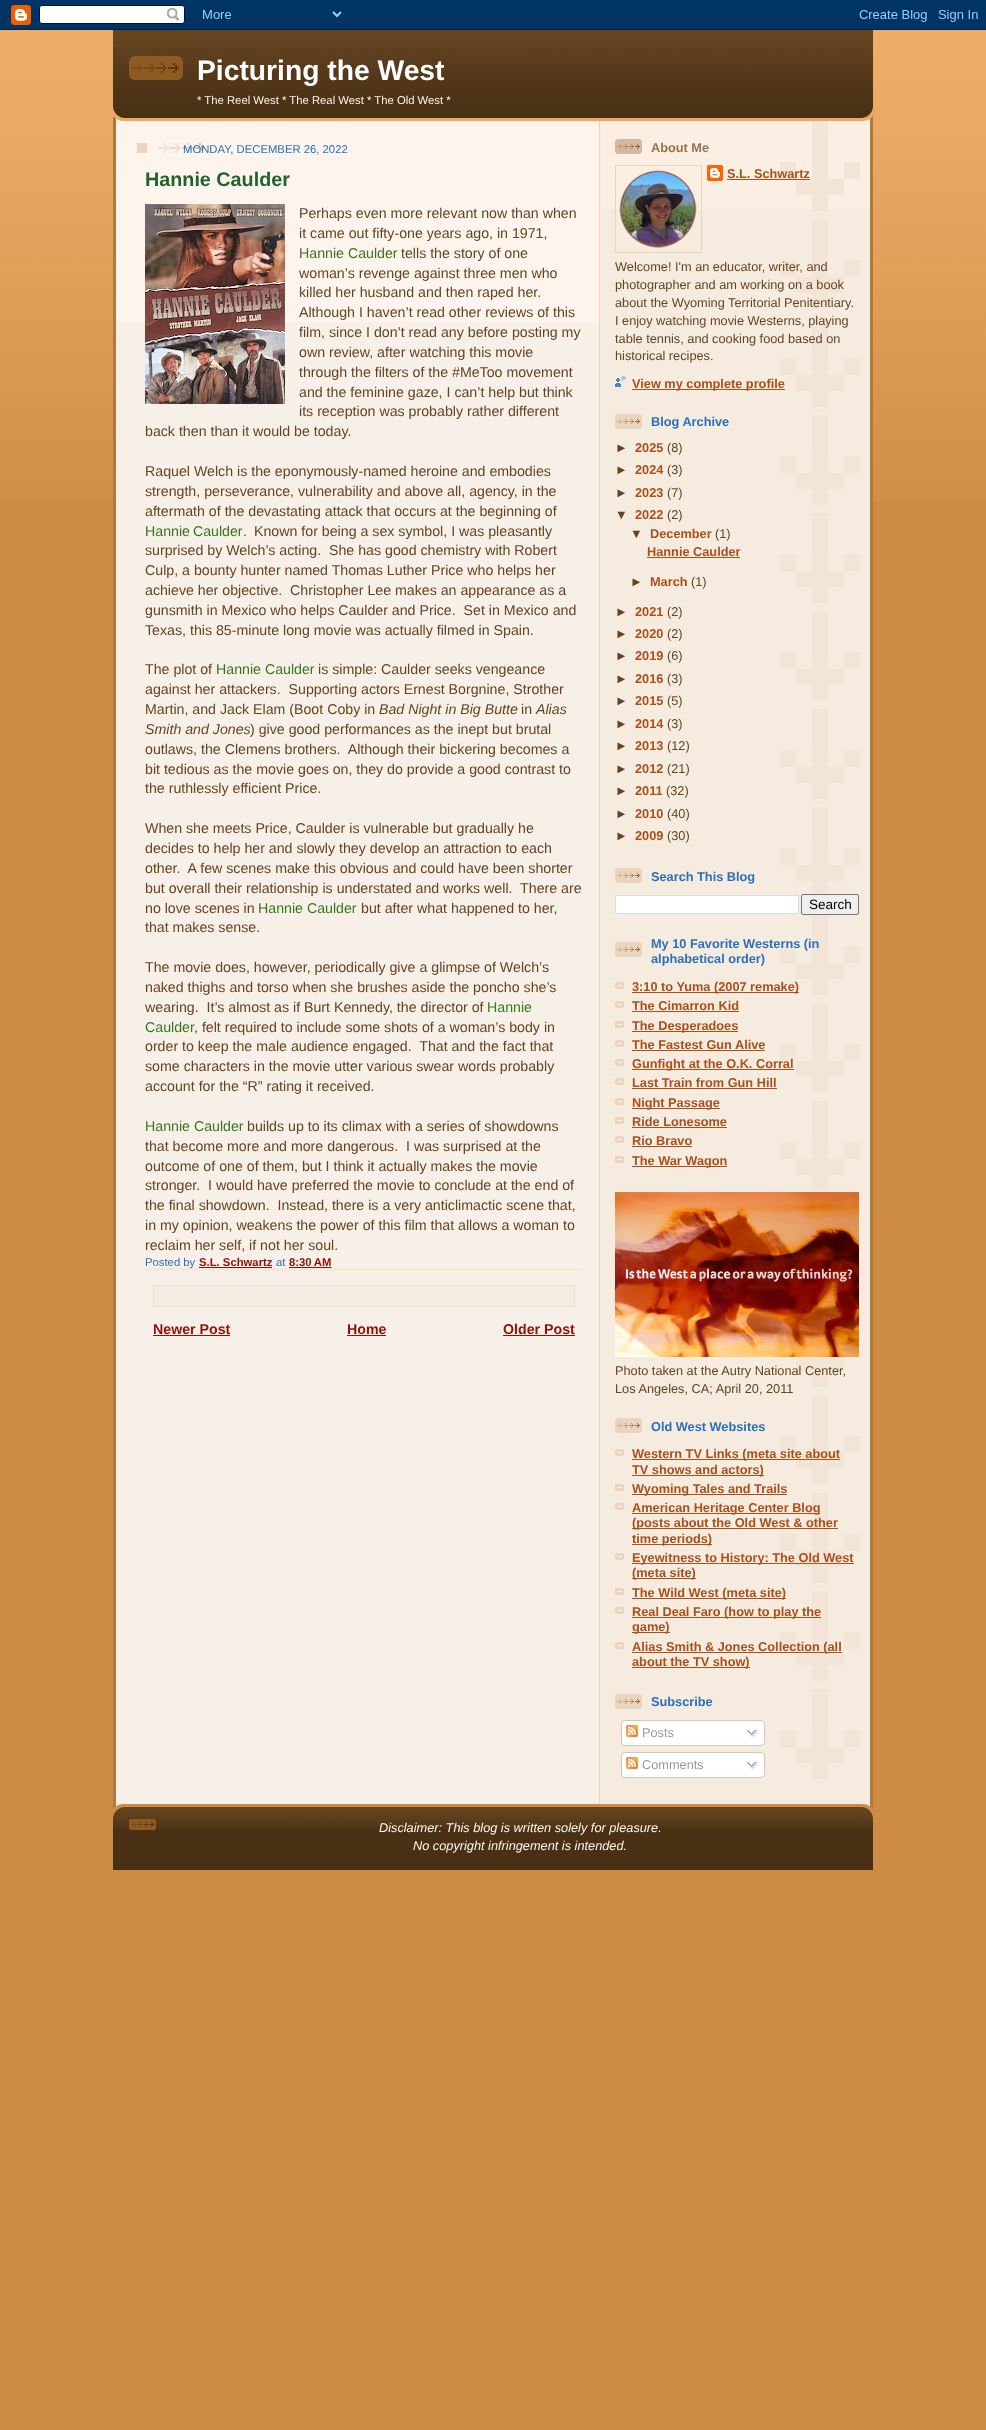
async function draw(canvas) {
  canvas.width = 986;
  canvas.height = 2430;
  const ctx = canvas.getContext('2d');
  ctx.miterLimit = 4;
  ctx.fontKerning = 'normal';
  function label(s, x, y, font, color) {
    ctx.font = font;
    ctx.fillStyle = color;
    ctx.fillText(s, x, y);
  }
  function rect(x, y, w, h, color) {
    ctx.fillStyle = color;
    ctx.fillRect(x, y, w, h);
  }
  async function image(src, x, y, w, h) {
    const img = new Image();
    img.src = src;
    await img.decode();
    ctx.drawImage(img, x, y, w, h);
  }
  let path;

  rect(0, 0, 986, 2430, '#ce8b43');
  await image('assets/img1.png', 0, 30, 986, 471);
  await image('assets/img2.png', 0, 0, 986, 30);
  await image('assets/img3.png', 113, 106, 760, 15);
  rect(113, 30, 760, 17, '#634320');
  await image('assets/img4.png', 113, 47, 760, 59);
  await image('assets/img5.png', 129, 56, 54, 24);
  label('Picturing the West', 197, 80, 'bold 28.25px Liberation Sans', '#fff');
  label('* The Reel West * The Real West * The Old West *', 197, 104, '11.3px Liberation Sans', '#fef6ee');
  await image('assets/img6.png', 113, 121, 760, 1683);
  rect(116, 121, 483, 201, '#fdf5ed');
  rect(137, 143, 10, 10, '#ebd4bd');
  await image('assets/img7.png', 158, 143, 47, 10);
  label('MONDAY, DECEMBER 26, 2022', 183, 153, '11.3px Liberation Sans', '#2a70ba');
  rect(145, 1268, 438, 3, '#f7e8d8');
  label('Hannie Caulder', 145, 186, 'bold 19.75px Liberation Sans', '#206330');
  await image('assets/img8.png', 145, 204, 140, 200);
  label('Perhaps even more relevant now than when', 299, 218, '14.2px Liberation Sans', '#634320');
  label('it came out fifty-one years ago, in 1971,', 299, 238, '14.2px Liberation Sans', '#634320');
  label('Hannie Caulder', 299, 258, '14.2px Liberation Sans', '#38761d');
  label('tells the story of one', 401, 258, '14.2px Liberation Sans', '#634320');
  label('woman’s revenge against three men who', 299, 278, '14.2px Liberation Sans', '#634320');
  label('killed her husband and then raped her.', 299, 297, '14.2px Liberation Sans', '#634320');
  label('Although I haven’t read other reviews of this', 299, 317, '14.2px Liberation Sans', '#634320');
  label('film, since I don’t read any before posting my', 299, 337, '14.2px Liberation Sans', '#634320');
  label('own review, after watching this movie', 299, 357, '14.2px Liberation Sans', '#634320');
  label('through the filters of the #MeToo movement', 299, 377, '14.2px Liberation Sans', '#634320');
  label('and the feminine gaze, I can’t help but think', 299, 397, '14.2px Liberation Sans', '#634320');
  label('its reception was probably rather different', 299, 416, '14.2px Liberation Sans', '#634320');
  label('back then than it would be today.', 145, 436, '14.2px Liberation Sans', '#634320');
  label('Raquel Welch is the eponymously-named heroine and embodies', 145, 476, '14.2px Liberation Sans', '#634320');
  label('strength, perseverance, vulnerability and above all, agency, in the', 145, 496, '14.2px Liberation Sans', '#634320');
  label('aftermath of the devastating attack that occurs at the beginning of', 145, 516, '14.2px Liberation Sans', '#634320');
  ctx.wordSpacing = '-1px';
  label('Hannie Caulder', 145, 536, '14.2px Liberation Sans', '#38761d');
  ctx.wordSpacing = '0px';
  label('.', 243, 536, '14.2px Liberation Sans', '#38761d');
  label('Known for being a sex symbol, I was pleasantly', 254, 536, '14.2px Liberation Sans', '#634320');
  label('surprised by Welch’s acting.  She has good chemistry with Robert', 145, 555, '14.2px Liberation Sans', '#634320');
  label('Culp, a bounty hunter named Thomas Luther Price who helps her', 145, 575, '14.2px Liberation Sans', '#634320');
  label('achieve her objective.  Christopher Lee makes an appearance as a', 145, 595, '14.2px Liberation Sans', '#634320');
  label('gunsmith in Mexico who helps Caulder and Price.  Set in Mexico and', 145, 615, '14.2px Liberation Sans', '#634320');
  label('Texas, this 85-minute long movie was actually filmed in Spain.', 145, 635, '14.2px Liberation Sans', '#634320');
  label('The plot of', 145, 674, '14.2px Liberation Sans', '#634320');
  label('Hannie Caulder', 216, 674, '14.2px Liberation Sans', '#38761d');
  label('is simple: Caulder seeks vengeance', 318, 674, '14.2px Liberation Sans', '#634320');
  label('against her attackers.  Supporting actors Ernest Borgnine, Strother', 145, 694, '14.2px Liberation Sans', '#634320');
  label('Martin, and Jack Elam (Boot Coby in', 145, 714, '14.2px Liberation Sans', '#634320');
  label('Bad Night in Big Butte', 379, 714, 'italic 14.2px Liberation Sans', '#634320');
  label('in', 521, 714, '14.2px Liberation Sans', '#634320');
  label('Alias', 536, 714, 'italic 14.2px Liberation Sans', '#634320');
  label('Smith and Jones', 145, 734, 'italic 14.2px Liberation Sans', '#634320');
  label(') give good performances as the inept but brutal', 250, 734, '14.2px Liberation Sans', '#634320');
  label('outlaws, the Clemens brothers.  Although their bickering becomes a', 145, 754, '14.2px Liberation Sans', '#634320');
  label('bit tedious as the movie goes on, they do provide a good contrast to', 145, 774, '14.2px Liberation Sans', '#634320');
  label('the ruthlessly efficient Price.', 145, 793, '14.2px Liberation Sans', '#634320');
  label('When she meets Price, Caulder is vulnerable but gradually he', 145, 833, '14.2px Liberation Sans', '#634320');
  label('decides to help her and slowly they develop an attraction to each', 145, 853, '14.2px Liberation Sans', '#634320');
  label('other.  A few scenes make this obvious and could have been shorter', 145, 873, '14.2px Liberation Sans', '#634320');
  label('but overall their relationship is understated and works well.  There are', 145, 893, '14.2px Liberation Sans', '#634320');
  label('no love scenes in', 145, 913, '14.2px Liberation Sans', '#634320');
  label('Hannie Caulder', 258, 913, '14.2px Liberation Sans', '#38761d');
  label('but after what happened to her,', 361, 913, '14.2px Liberation Sans', '#634320');
  label('that makes sense.', 145, 932, '14.2px Liberation Sans', '#634320');
  label('The movie does, however, periodically give a glimpse of Welch’s', 145, 972, '14.2px Liberation Sans', '#634320');
  label('naked thighs and torso when she brushes aside the poncho she’s', 145, 992, '14.2px Liberation Sans', '#634320');
  label('wearing.  It’s almost as if Burt Kennedy, the director of', 145, 1012, '14.2px Liberation Sans', '#634320');
  label('Hannie', 487, 1012, '14.2px Liberation Sans', '#38761d');
  label('Caulder', 145, 1032, '14.2px Liberation Sans', '#38761d');
  label(', felt required to include some shots of a woman’s body in', 194, 1032, '14.2px Liberation Sans', '#634320');
  label('order to keep the male audience engaged.  That and the fact that', 145, 1051, '14.2px Liberation Sans', '#634320');
  label('some characters in the movie utter various swear words probably', 145, 1071, '14.2px Liberation Sans', '#634320');
  label('account for the “R” rating it received.', 145, 1091, '14.2px Liberation Sans', '#634320');
  label('Hannie Caulder', 145, 1131, '14.2px Liberation Sans', '#38761d');
  label('builds up to its climax with a series of showdowns', 247, 1131, '14.2px Liberation Sans', '#634320');
  label('that become more and more dangerous.  I was surprised at the', 145, 1151, '14.2px Liberation Sans', '#634320');
  label('outcome of one of them, but I think it actually makes the movie', 145, 1171, '14.2px Liberation Sans', '#634320');
  label('stronger.  I would have preferred the movie to conclude at the end of', 145, 1190, '14.2px Liberation Sans', '#634320');
  label('the final showdown.  Instead, there is a very anticlimactic scene that,', 145, 1210, '14.2px Liberation Sans', '#634320');
  label('in my opinion, weakens the power of this film that allows a woman to', 145, 1230, '14.2px Liberation Sans', '#634320');
  label('reclaim her self, if not her soul.', 145, 1250, '14.2px Liberation Sans', '#634320');
  label('Posted by', 145, 1266, '11.3px Liberation Sans', '#2a70ba');
  label('S.L. Schwartz', 199, 1266, 'bold 11.3px Liberation Sans', '#940f04');
  rect(199, 1267, 73, 1, '#940f04');
  label('at', 276, 1266, '11.3px Liberation Sans', '#2a70ba');
  label('8:30 AM', 289, 1266, 'bold 11.3px Liberation Sans', '#940f04');
  path = new Path2D('M289 1267.5H331.5');
  ctx.strokeStyle = '#940f04';
  ctx.setLineDash([1, 1]);
  ctx.stroke(path);
  rect(289, 1267, 42, 1, '#940f04');
  ctx.fillStyle = '#f5ede4';
  ctx.beginPath();
  ctx.rect(153.5, 1285.5, 421, 21);
  ctx.fill();
  ctx.strokeStyle = '#f0e0ce';
  ctx.setLineDash([]);
  ctx.stroke();
  label('Newer Post', 153, 1334, 'bold 14.2px Liberation Sans', '#940f04');
  rect(153, 1335, 77, 1, '#940f04');
  label('Home', 347, 1334, 'bold 14.2px Liberation Sans', '#940f04');
  rect(347, 1335, 39, 1, '#940f04');
  label('Older Post', 503, 1334, 'bold 14.2px Liberation Sans', '#940f04');
  rect(503, 1335, 72, 1, '#940f04');
  rect(601, 121, 269, 88, '#fbefe3');
  await image('assets/img9.png', 780, 121, 80, 1658);
  await image('assets/img10.png', 615, 139, 27, 15);
  label('About Me', 651, 152, 'bold 12.75px Liberation Sans', '#957252');
  ctx.strokeStyle = '#ebd4bd';
  ctx.strokeRect(615.5, 165.5, 86, 87);
  await image('assets/img11.png', 619, 170, 78, 79);
  await image('assets/img12.png', 707, 165, 16, 16);
  label('S.L. Schwartz', 727, 178, 'bold 12.75px Liberation Sans', '#a9501b');
  rect(727, 179, 83, 1, '#a9501b');
  label('Welcome! I\'m an educator, writer, and', 615, 271, '12.75px Liberation Sans', '#634320');
  label('photographer and am working on a book', 615, 289, '12.75px Liberation Sans', '#634320');
  label('about the Wyoming Territorial Penitentiary.', 615, 307, '12.75px Liberation Sans', '#634320');
  label('I enjoy watching movie Westerns, playing', 615, 325, '12.75px Liberation Sans', '#634320');
  label('table tennis, and cooking food based on', 615, 343, '12.75px Liberation Sans', '#634320');
  label('historical recipes.', 615, 360, '12.75px Liberation Sans', '#634320');
  await image('assets/img13.png', 615, 376, 11, 11);
  rect(632, 389, 153, 1, '#a9501b');
  label('View my complete profile', 632, 388, 'bold 12.75px Liberation Sans', '#a9501b');
  await image('assets/img14.png', 615, 414, 27, 15);
  label('Blog Archive', 651, 426, 'bold 12.75px Liberation Sans', '#2a70ba');
  label('►', 615, 452, 'bold 12.75px Liberation Sans', '#634320');
  label('2025', 635, 452, 'bold 12.75px Liberation Sans', '#a9501b');
  label('(8)', 667, 452, '12.75px Liberation Sans', '#634320');
  label('►', 615, 474, 'bold 12.75px Liberation Sans', '#634320');
  label('2024', 635, 474, 'bold 12.75px Liberation Sans', '#a9501b');
  label('(3)', 667, 474, '12.75px Liberation Sans', '#634320');
  label('►', 615, 497, 'bold 12.75px Liberation Sans', '#634320');
  label('2023', 635, 497, 'bold 12.75px Liberation Sans', '#a9501b');
  label('(7)', 667, 497, '12.75px Liberation Sans', '#634320');
  label('▼', 615, 519, 'bold 12.75px Liberation Sans', '#634320');
  label('2022', 635, 519, 'bold 12.75px Liberation Sans', '#a9501b');
  label('(2)', 667, 519, '12.75px Liberation Sans', '#634320');
  label('▼', 630, 538, 'bold 12.75px Liberation Sans', '#634320');
  label('December', 650, 538, 'bold 12.75px Liberation Sans', '#a9501b');
  label('(1)', 715, 538, '12.75px Liberation Sans', '#634320');
  label('Hannie Caulder', 647, 556, 'bold 12.75px Liberation Sans', '#a9501b');
  rect(647, 557, 93, 1, '#a9501b');
  label('►', 630, 586, 'bold 12.75px Liberation Sans', '#634320');
  label('March', 650, 586, 'bold 12.75px Liberation Sans', '#a9501b');
  label('(1)', 691, 586, '12.75px Liberation Sans', '#634320');
  label('►', 615, 616, 'bold 12.75px Liberation Sans', '#634320');
  label('2021', 635, 616, 'bold 12.75px Liberation Sans', '#a9501b');
  label('(2)', 667, 616, '12.75px Liberation Sans', '#634320');
  label('►', 615, 638, 'bold 12.75px Liberation Sans', '#634320');
  label('2020', 635, 638, 'bold 12.75px Liberation Sans', '#a9501b');
  label('(2)', 667, 638, '12.75px Liberation Sans', '#634320');
  label('►', 615, 660, 'bold 12.75px Liberation Sans', '#634320');
  label('2019', 635, 660, 'bold 12.75px Liberation Sans', '#a9501b');
  label('(6)', 667, 660, '12.75px Liberation Sans', '#634320');
  label('►', 615, 683, 'bold 12.75px Liberation Sans', '#634320');
  label('2016', 635, 683, 'bold 12.75px Liberation Sans', '#a9501b');
  label('(3)', 667, 683, '12.75px Liberation Sans', '#634320');
  label('►', 615, 705, 'bold 12.75px Liberation Sans', '#634320');
  label('2015', 635, 705, 'bold 12.75px Liberation Sans', '#a9501b');
  label('(5)', 667, 705, '12.75px Liberation Sans', '#634320');
  label('►', 615, 728, 'bold 12.75px Liberation Sans', '#634320');
  label('2014', 635, 728, 'bold 12.75px Liberation Sans', '#a9501b');
  label('(3)', 667, 728, '12.75px Liberation Sans', '#634320');
  label('►', 615, 750, 'bold 12.75px Liberation Sans', '#634320');
  label('2013', 635, 750, 'bold 12.75px Liberation Sans', '#a9501b');
  label('(12)', 667, 750, '12.75px Liberation Sans', '#634320');
  label('►', 615, 773, 'bold 12.75px Liberation Sans', '#634320');
  label('2012', 635, 773, 'bold 12.75px Liberation Sans', '#a9501b');
  label('(21)', 667, 773, '12.75px Liberation Sans', '#634320');
  label('►', 615, 795, 'bold 12.75px Liberation Sans', '#634320');
  label('2011', 635, 795, 'bold 12.75px Liberation Sans', '#a9501b');
  label('(32)', 666, 795, '12.75px Liberation Sans', '#634320');
  label('►', 615, 818, 'bold 12.75px Liberation Sans', '#634320');
  label('2010', 635, 818, 'bold 12.75px Liberation Sans', '#a9501b');
  label('(40)', 667, 818, '12.75px Liberation Sans', '#634320');
  label('►', 615, 840, 'bold 12.75px Liberation Sans', '#634320');
  label('2009', 635, 840, 'bold 12.75px Liberation Sans', '#a9501b');
  label('(30)', 667, 840, '12.75px Liberation Sans', '#634320');
  await image('assets/img14.png', 615, 868, 27, 15);
  label('Search This Blog', 651, 881, 'bold 12.75px Liberation Sans', '#2a70ba');
  ctx.fillStyle = '#fff';
  ctx.beginPath();
  ctx.rect(615.5, 895.5, 183, 18);
  ctx.fill();
  ctx.strokeStyle = '#ddd';
  ctx.stroke();
  ctx.fillStyle = '#efefef';
  ctx.beginPath();
  ctx.roundRect(801.5, 894.5, 57, 20, 1.5);
  ctx.fill();
  ctx.strokeStyle = '#767676';
  ctx.stroke();
  label('Search', 809, 909, '13.5px Liberation Sans', '#000');
  await image('assets/img14.png', 615, 942, 27, 15);
  label('My 10 Favorite Westerns (in', 651, 948, 'bold 12.75px Liberation Sans', '#2a70ba');
  label('alphabetical order)', 651, 963, 'bold 12.75px Liberation Sans', '#2a70ba');
  await image('assets/img15.png', 615, 982, 9, 7);
  rect(632, 992, 167, 1, '#a9501b');
  label('3:10 to Yuma (2007 remake)', 632, 991, 'bold 12.75px Liberation Sans', '#a9501b');
  await image('assets/img15.png', 615, 1001, 9, 7);
  label('The Cimarron Kid', 632, 1010, 'bold 12.75px Liberation Sans', '#a9501b');
  rect(632, 1011, 107, 1, '#a9501b');
  await image('assets/img15.png', 615, 1021, 9, 7);
  rect(632, 1031, 106, 1, '#a9501b');
  label('The Desperadoes', 632, 1030, 'bold 12.75px Liberation Sans', '#a9501b');
  await image('assets/img15.png', 615, 1040, 9, 7);
  label('The Fastest Gun Alive', 632, 1049, 'bold 12.75px Liberation Sans', '#a9501b');
  rect(632, 1050, 133, 1, '#a9501b');
  await image('assets/img15.png', 615, 1059, 9, 7);
  rect(632, 1069, 162, 1, '#a9501b');
  label('Gunfight at the O.K. Corral', 632, 1068, 'bold 12.75px Liberation Sans', '#a9501b');
  await image('assets/img15.png', 615, 1078, 9, 7);
  label('Last Train from Gun Hill', 632, 1087, 'bold 12.75px Liberation Sans', '#a9501b');
  rect(632, 1088, 145, 1, '#a9501b');
  await image('assets/img15.png', 615, 1098, 9, 7);
  rect(632, 1108, 88, 1, '#a9501b');
  label('Night Passage', 632, 1107, 'bold 12.75px Liberation Sans', '#a9501b');
  await image('assets/img15.png', 615, 1117, 9, 7);
  label('Ride Lonesome', 632, 1126, 'bold 12.75px Liberation Sans', '#a9501b');
  rect(632, 1127, 95, 1, '#a9501b');
  await image('assets/img15.png', 615, 1136, 9, 7);
  label('Rio Bravo', 632, 1145, 'bold 12.75px Liberation Sans', '#a9501b');
  rect(632, 1146, 60, 1, '#a9501b');
  await image('assets/img15.png', 615, 1156, 9, 7);
  rect(632, 1166, 95, 1, '#a9501b');
  label('The War Wagon', 632, 1165, 'bold 12.75px Liberation Sans', '#a9501b');
  await image('assets/img16.png', 615, 1192, 244, 165);
  label('Photo taken at the Autry National Center,', 615, 1375, '12.75px Liberation Sans', '#634320');
  label('Los Angeles, CA; April 20, 2011', 615, 1393, '12.75px Liberation Sans', '#634320');
  await image('assets/img14.png', 615, 1418, 27, 15);
  label('Old West Websites', 651, 1431, 'bold 12.75px Liberation Sans', '#2a70ba');
  await image('assets/img15.png', 615, 1449, 9, 7);
  rect(632, 1459, 208, 1, '#a9501b');
  label('Western TV Links (meta site about', 632, 1458, 'bold 12.75px Liberation Sans', '#a9501b');
  rect(632, 1475, 132, 1, '#a9501b');
  label('TV shows and actors)', 632, 1474, 'bold 12.75px Liberation Sans', '#a9501b');
  await image('assets/img15.png', 615, 1484, 9, 7);
  rect(632, 1494, 155, 1, '#a9501b');
  label('Wyoming Tales and Trails', 632, 1493, 'bold 12.75px Liberation Sans', '#a9501b');
  await image('assets/img15.png', 615, 1503, 9, 7);
  rect(632, 1513, 188, 1, '#a9501b');
  label('American Heritage Center Blog', 632, 1512, 'bold 12.75px Liberation Sans', '#a9501b');
  rect(632, 1528, 206, 1, '#a9501b');
  label('(posts about the Old West & other', 632, 1527, 'bold 12.75px Liberation Sans', '#a9501b');
  rect(632, 1544, 80, 1, '#a9501b');
  label('time periods)', 632, 1543, 'bold 12.75px Liberation Sans', '#a9501b');
  await image('assets/img15.png', 615, 1553, 9, 7);
  rect(632, 1563, 222, 1, '#a9501b');
  label('Eyewitness to History: The Old West', 632, 1562, 'bold 12.75px Liberation Sans', '#a9501b');
  rect(632, 1578, 64, 1, '#a9501b');
  label('(meta site)', 632, 1577, 'bold 12.75px Liberation Sans', '#a9501b');
  await image('assets/img15.png', 615, 1588, 9, 7);
  rect(632, 1598, 154, 1, '#a9501b');
  label('The Wild West (meta site)', 632, 1597, 'bold 12.75px Liberation Sans', '#a9501b');
  await image('assets/img15.png', 615, 1607, 9, 7);
  rect(632, 1617, 189, 1, '#a9501b');
  label('Real Deal Faro (how to play the', 632, 1616, 'bold 12.75px Liberation Sans', '#a9501b');
  rect(632, 1632, 38, 1, '#a9501b');
  label('game)', 632, 1631, 'bold 12.75px Liberation Sans', '#a9501b');
  await image('assets/img15.png', 615, 1642, 9, 7);
  rect(632, 1652, 210, 1, '#a9501b');
  label('Alias Smith & Jones Collection (all', 632, 1651, 'bold 12.75px Liberation Sans', '#a9501b');
  rect(632, 1667, 118, 1, '#a9501b');
  label('about the TV show)', 632, 1666, 'bold 12.75px Liberation Sans', '#a9501b');
  await image('assets/img14.png', 615, 1694, 27, 15);
  label('Subscribe', 651, 1706, 'bold 12.75px Liberation Sans', '#2a70ba');
  await image('assets/img17.png', 621, 1720, 144, 23);
  await image('assets/img18.png', 626, 1725, 12, 12);
  label('Posts', 642, 1737, '12.75px Liberation Sans', '#999');
  await image('assets/img19.png', 746, 1729, 13, 9);
  await image('assets/img20.png', 621, 1743, 144, 3);
  await image('assets/img17.png', 621, 1752, 144, 23);
  await image('assets/img18.png', 626, 1757, 12, 12);
  label('Comments', 642, 1769, '12.75px Liberation Sans', '#999');
  await image('assets/img19.png', 746, 1761, 13, 9);
  await image('assets/img20.png', 621, 1775, 144, 3);
  await image('assets/img21.png', 113, 1804, 760, 15);
  rect(113, 1829, 760, 41, '#493015');
  await image('assets/img22.png', 113, 1819, 760, 10);
  await image('assets/img23.png', 129, 1819, 27, 11);
  label('Disclaimer: This blog is written solely for pleasure.', 379, 1832, 'italic 12.75px Liberation Sans', '#fef6ee');
  label('No copyright infringement is intended.', 413, 1850, 'italic 12.75px Liberation Sans', '#fef6ee');
}

draw(document.querySelector('canvas'));
